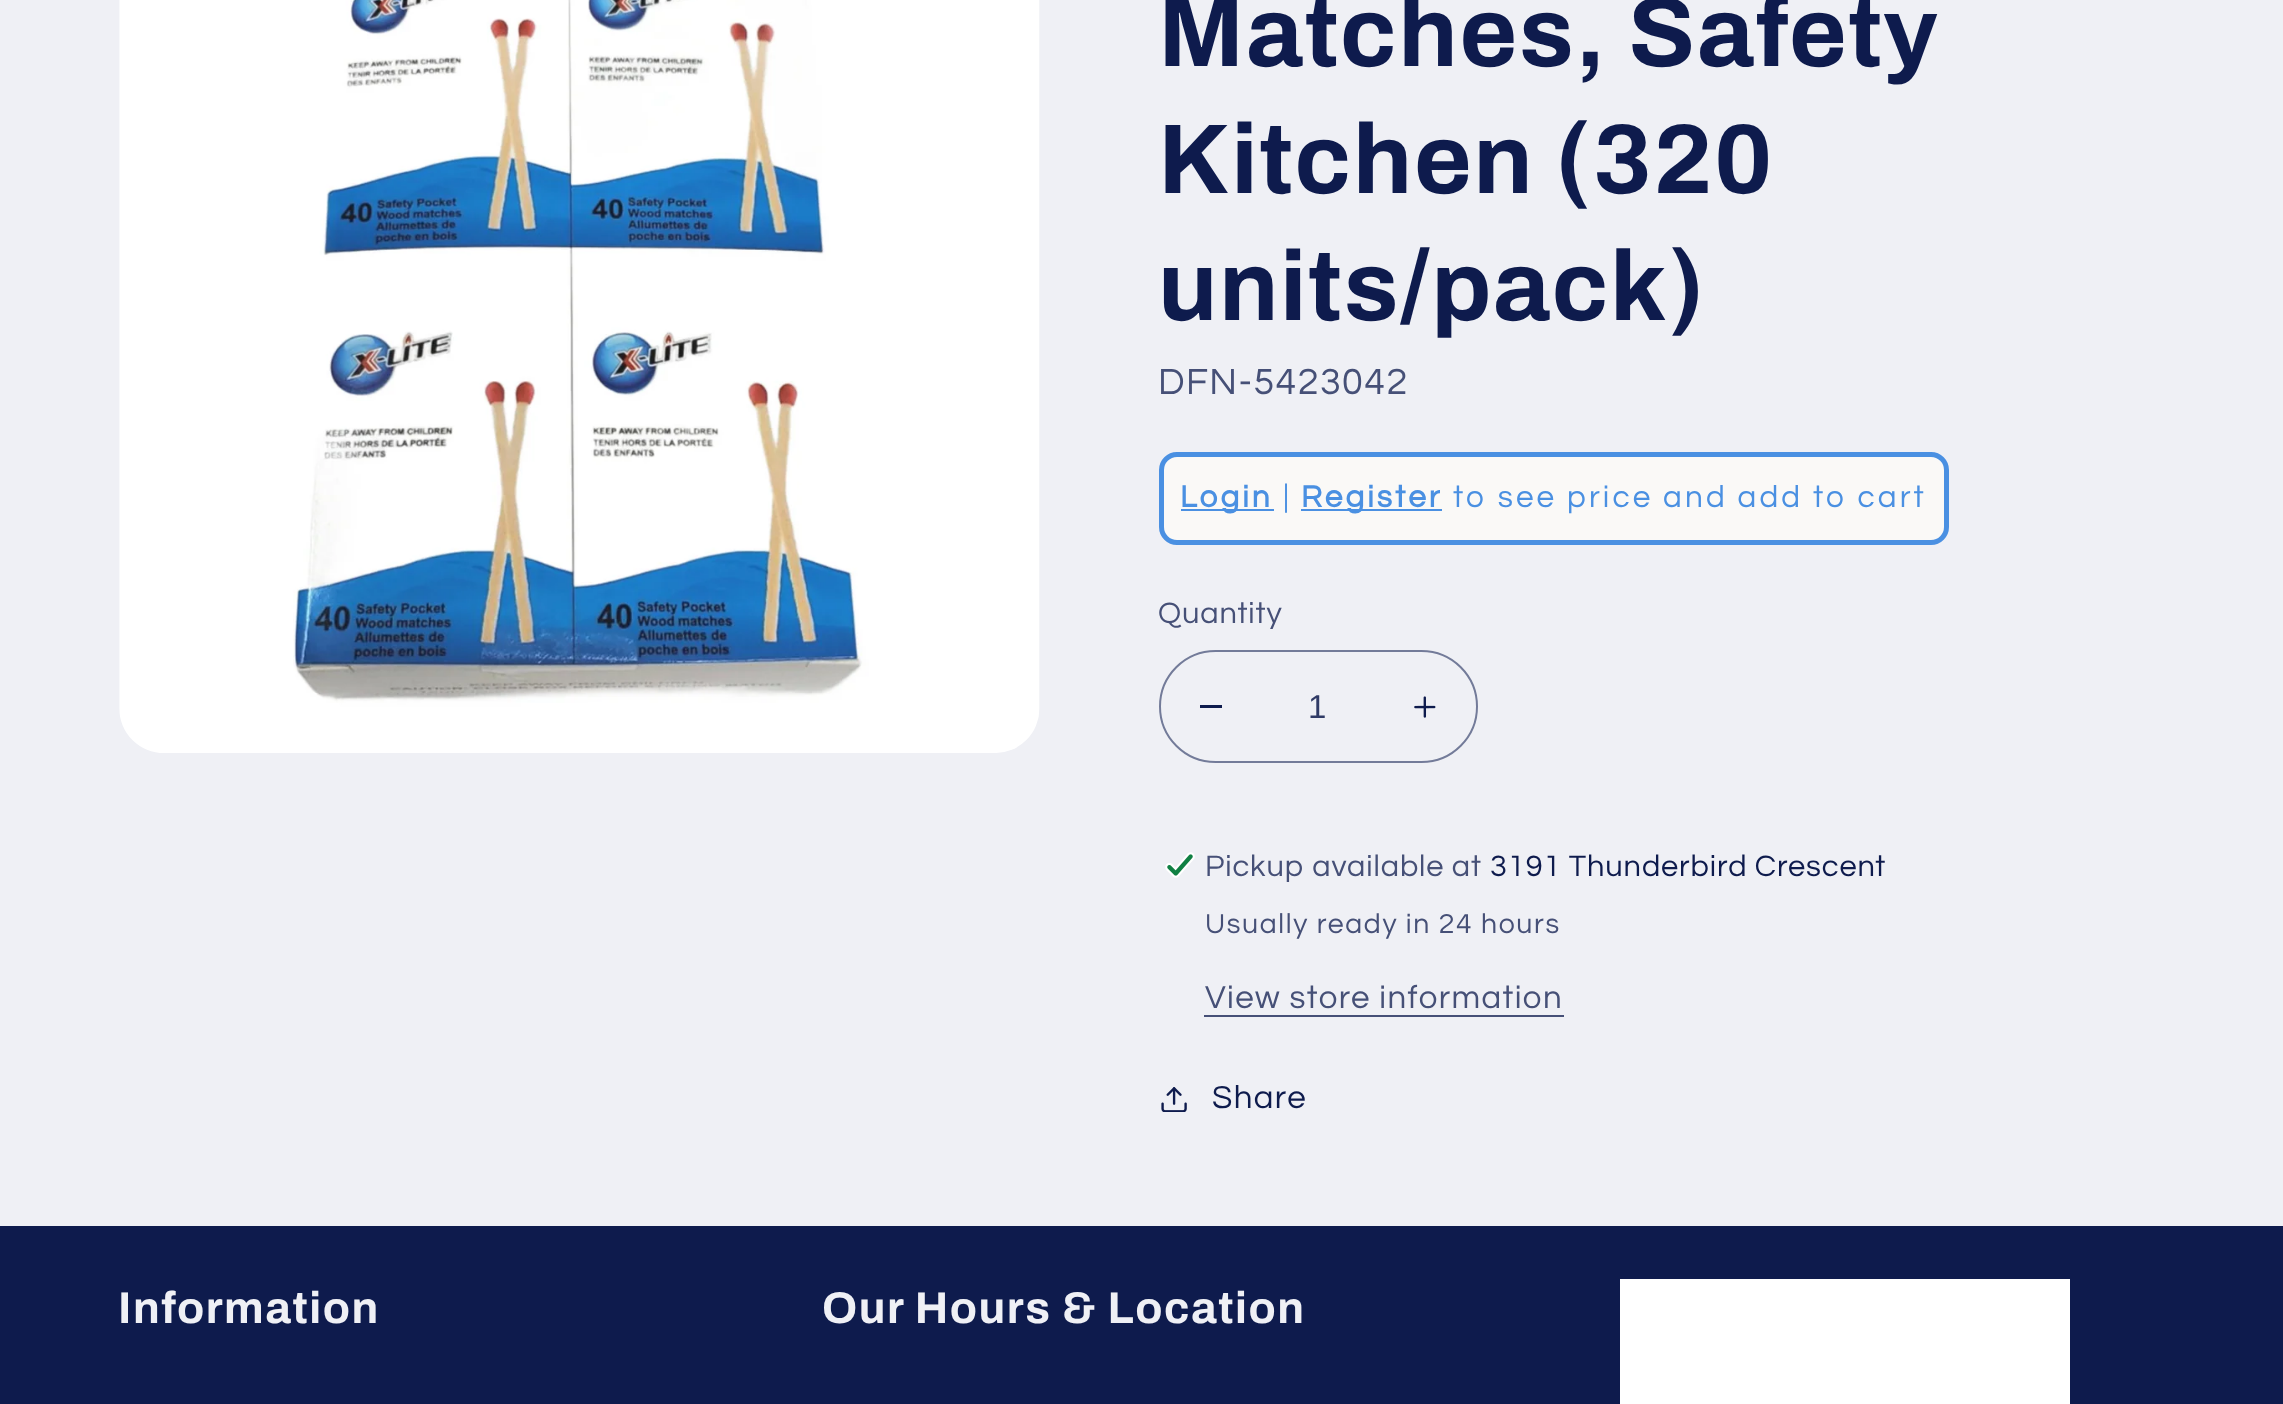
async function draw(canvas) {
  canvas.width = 2283;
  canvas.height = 1404;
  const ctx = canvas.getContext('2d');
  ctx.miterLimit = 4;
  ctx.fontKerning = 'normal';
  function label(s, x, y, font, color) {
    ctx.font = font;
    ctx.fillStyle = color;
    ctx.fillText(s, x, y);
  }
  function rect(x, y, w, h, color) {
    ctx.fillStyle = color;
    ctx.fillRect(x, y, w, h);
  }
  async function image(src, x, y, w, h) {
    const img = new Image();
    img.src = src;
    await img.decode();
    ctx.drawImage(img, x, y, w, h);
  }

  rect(0, 0, 2283, 1404, '#eff0f5');
  await image('assets/img1.png', 119, 0, 921, 753);
  ctx.letterSpacing = '1.5px';
  label('Matches, Safety', 1158, 66, 'bold 99px Archivo', '#0e1b4d');
  label('Kitchen (320', 1158, 193, 'bold 99px Archivo', '#0e1b4d');
  label('units/pack)', 1158, 320, 'bold 99px Archivo', '#0e1b4d');
  ctx.letterSpacing = '1.4px';
  label('DFN-5423042', 1158, 394, '37.75px Questrial', '#465077');
  ctx.fillStyle = '#faf9f7';
  ctx.beginPath();
  ctx.roundRect(1161.5, 454.5, 785, 88, 15.5);
  ctx.fill();
  ctx.strokeStyle = '#4a90e2';
  ctx.lineWidth = 5;
  ctx.stroke();
  rect(1181, 509, 93, 2, '#4a90e2');
  ctx.letterSpacing = '3.1px';
  label('Login', 1180, 507, 'bold 31.5px Questrial', '#4a90e2');
  label('|', 1283, 507, '31.5px Questrial', '#4a90e2');
  rect(1301, 509, 141, 2, '#4a90e2');
  label('Register', 1301, 507, 'bold 31.5px Questrial', '#4a90e2');
  label('to see price and add to cart', 1453, 507, '31.5px Questrial', '#4a90e2');
  ctx.letterSpacing = '0.9px';
  label('Quantity', 1158, 623, '30.75px Questrial', '#465077');
  rect(1200, 705, 22, 3, '#0e1b4d');
  await image('assets/img2.png', 1414, 696, 22, 22);
  ctx.beginPath();
  ctx.roundRect(1160, 651, 317, 111, 55.5);
  ctx.strokeStyle = '#737b99';
  ctx.lineWidth = 2;
  ctx.stroke();
  ctx.letterSpacing = '0px';
  label('1', 1308, 718, '33px Liberation Sans', '#303b66');
  await image('assets/img3.png', 1165, 852, 30, 26);
  ctx.letterSpacing = '0.9px';
  label('Pickup available at', 1205, 876, '30.75px Questrial', '#465077');
  label('3191 Thunderbird Crescent', 1490, 876, '30.75px Questrial', '#0e1b4d');
  ctx.letterSpacing = '1.65px';
  label('Usually ready in 24 hours', 1205, 933, '28.4px Questrial', '#465077');
  ctx.letterSpacing = '1.4px';
  label('View store information', 1205, 1008, '33px Questrial', '#465077');
  rect(1204, 1015, 360, 2, '#465077');
  await image('assets/img4.png', 1161, 1087, 26, 25);
  label('Share', 1212, 1108, '33px Questrial', '#0e1b4d');
  rect(0, 1226, 2283, 178, '#0e1b4d');
  ctx.letterSpacing = '1.5px';
  label('Information', 118, 1323, 'bold 44.5px Archivo', '#eff0f5');
  label('Our Hours & Location', 822, 1323, 'bold 44.5px Archivo', '#eff0f5');
  rect(1620, 1279, 450, 125, '#fff');
}

draw(document.querySelector('canvas'));
